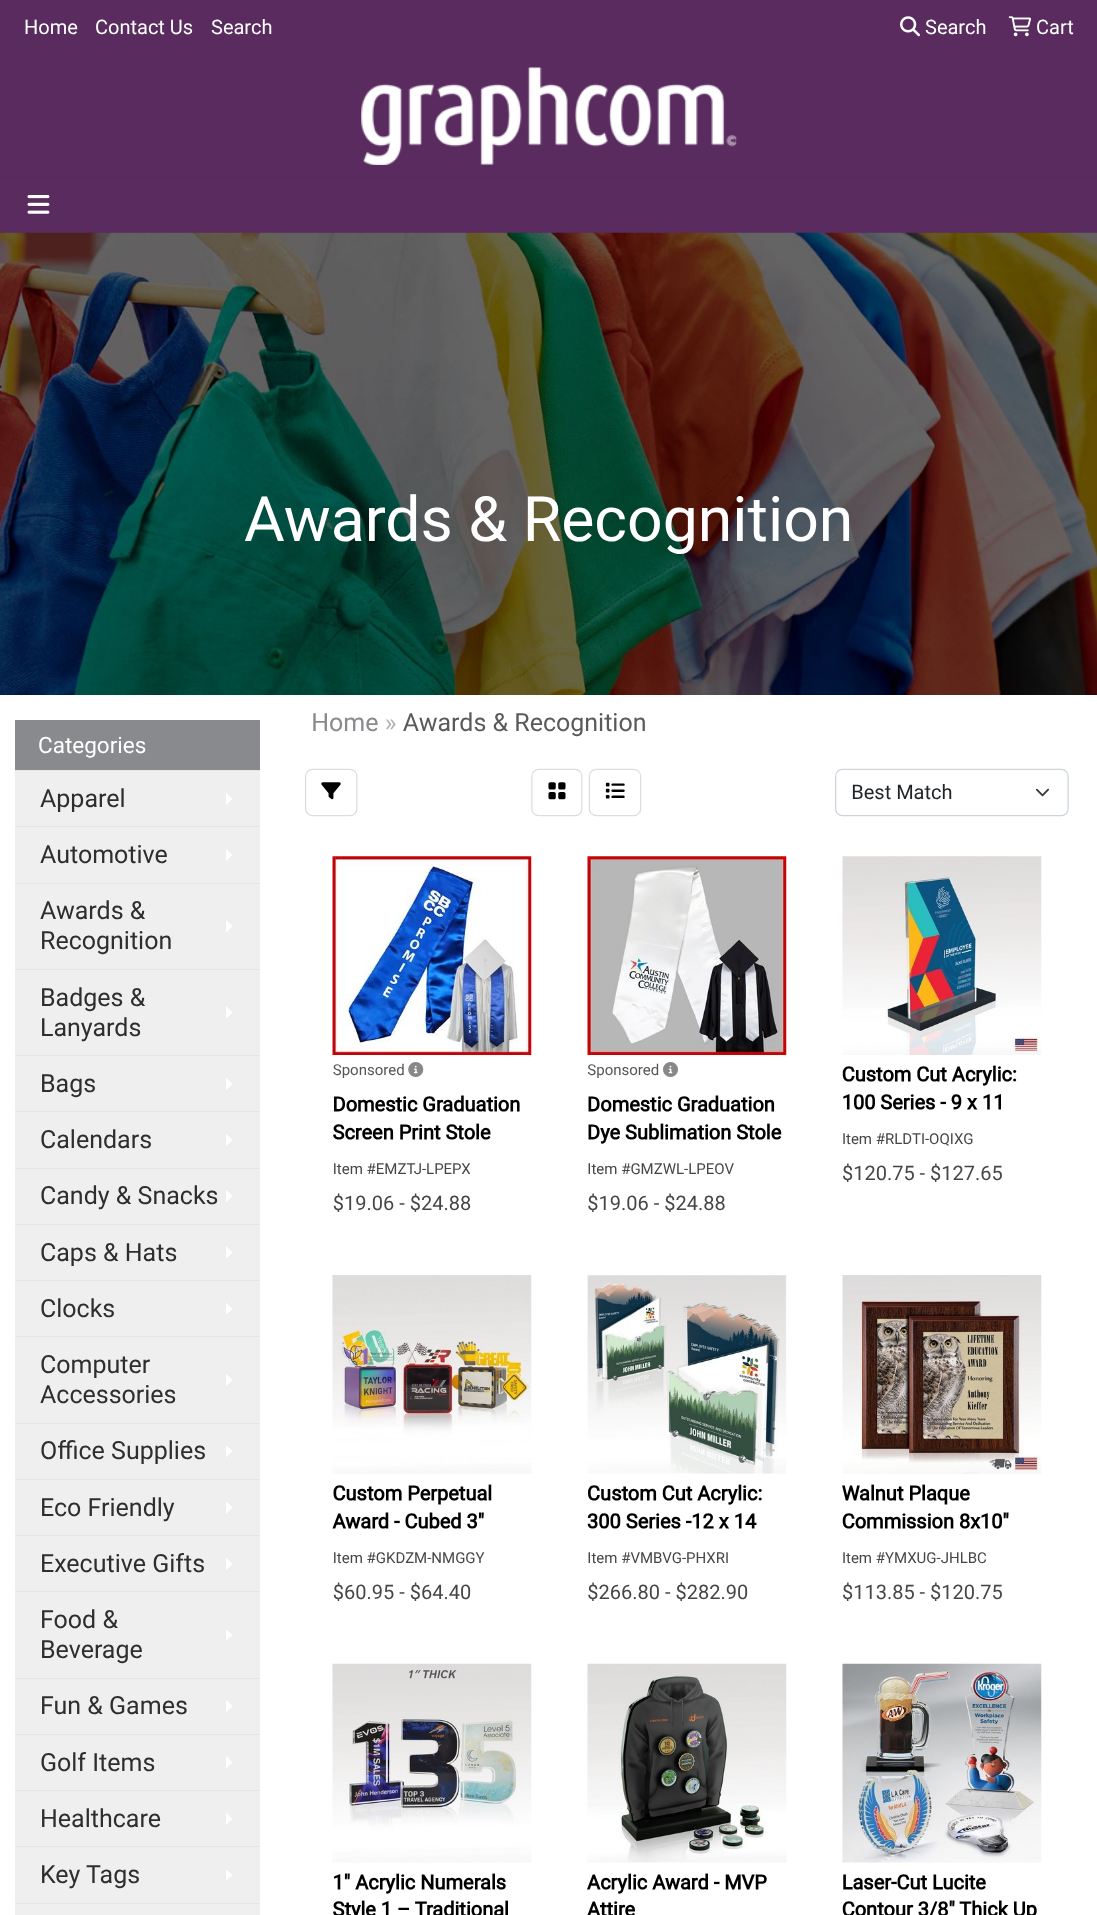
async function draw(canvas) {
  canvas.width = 1097;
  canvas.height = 1915;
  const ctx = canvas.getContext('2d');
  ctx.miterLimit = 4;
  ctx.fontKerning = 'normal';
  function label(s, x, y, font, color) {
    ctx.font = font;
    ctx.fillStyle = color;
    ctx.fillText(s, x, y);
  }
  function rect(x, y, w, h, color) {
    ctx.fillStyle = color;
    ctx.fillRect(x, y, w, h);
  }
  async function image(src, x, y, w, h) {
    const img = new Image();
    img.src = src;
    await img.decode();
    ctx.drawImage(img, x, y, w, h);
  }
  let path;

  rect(0, 0, 1097, 1915, '#fff');
  rect(0, 0, 1097, 233, '#592b5e');
  label('Home', 24, 34, '20px Roboto', '#fff');
  label('Contact Us', 95, 34, '20px Roboto', '#fff');
  label('Search', 211, 34, '20px Roboto', '#fff');
  await image('assets/img1.png', 900, 16, 20, 21);
  label('Search', 925, 34, '20px Roboto', '#fff');
  await image('assets/img2.png', 1008, 16, 23, 21);
  label('Cart', 1036, 34, '20px Roboto', '#fff');
  await image('assets/img3.png', 361, 67, 376, 98);
  ctx.save();
  path = new Path2D('M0 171H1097V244H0ZM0 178H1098V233H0Z');
  ctx.clip(path, 'evenodd');
  ctx.fillStyle = '#00000012';
  ctx.filter = 'blur(2.5px)';
  ctx.beginPath();
  ctx.rect(0, 180, 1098, 55);
  ctx.fill();
  ctx.filter = 'none';
  ctx.restore();
  await image('assets/img4.png', 27, 195, 23, 19);
  await image('assets/img5.png', 0, 232, 1097, 463);
  label('Awards & Recognition', 244, 541, '62.5px Roboto', '#fff');
  rect(15, 720, 245, 50, '#898a8d');
  label('Categories', 38, 753, '22.5px Roboto', '#fff');
  rect(15, 771, 245, 55, '#efefef');
  rect(15, 770, 245, 1, '#e5e5e5');
  label('Apparel', 40, 807, '25px Roboto', '#2e2e2e');
  ctx.fillStyle = '#fff';
  path = new Path2D('M226 805V792.5L232.5 799Z');
  ctx.fill(path);
  rect(15, 827, 245, 56, '#efefef');
  rect(15, 826, 245, 1, '#e5e5e5');
  label('Automotive', 40, 863, '25px Roboto', '#2e2e2e');
  ctx.fillStyle = '#fff';
  path = new Path2D('M226 861V849L232.5 855Z');
  ctx.fill(path);
  rect(15, 884, 245, 85, '#efefef');
  rect(15, 883, 245, 1, '#e5e5e5');
  label('Awards &', 40, 919, '25px Roboto', '#2e2e2e');
  ctx.fillStyle = '#fff';
  path = new Path2D('M226 932.5V920L232.5 926Z');
  ctx.fill(path);
  label('Recognition', 40, 949, '25px Roboto', '#2e2e2e');
  rect(15, 970, 245, 85, '#efefef');
  rect(15, 969, 245, 1, '#e5e5e5');
  label('Badges &', 40, 1006, '25px Roboto', '#2e2e2e');
  ctx.fillStyle = '#fff';
  path = new Path2D('M226 1019V1006L232.5 1012.5Z');
  ctx.fill(path);
  label('Lanyards', 40, 1036, '25px Roboto', '#2e2e2e');
  rect(15, 1056, 245, 55, '#efefef');
  rect(15, 1055, 245, 1, '#e5e5e5');
  label('Bags', 40, 1092, '25px Roboto', '#2e2e2e');
  ctx.fillStyle = '#fff';
  path = new Path2D('M226 1090V1077.5L232.5 1084Z');
  ctx.fill(path);
  rect(15, 1112, 245, 56, '#efefef');
  rect(15, 1111, 245, 1, '#e5e5e5');
  label('Calendars', 40, 1148, '25px Roboto', '#2e2e2e');
  ctx.fillStyle = '#fff';
  path = new Path2D('M226 1146V1134L232.5 1140Z');
  ctx.fill(path);
  rect(15, 1169, 245, 55, '#efefef');
  rect(15, 1168, 245, 1, '#e5e5e5');
  label('Candy & Snacks', 40, 1204, '25px Roboto', '#2e2e2e');
  ctx.fillStyle = '#fff';
  path = new Path2D('M226 1202.5V1190L232.5 1196Z');
  ctx.fill(path);
  rect(15, 1225, 245, 55, '#efefef');
  rect(15, 1224, 245, 1, '#e5e5e5');
  label('Caps & Hats', 40, 1261, '25px Roboto', '#2e2e2e');
  ctx.fillStyle = '#fff';
  path = new Path2D('M226 1259V1246L232.5 1252.5Z');
  ctx.fill(path);
  rect(15, 1281, 245, 55, '#efefef');
  rect(15, 1280, 245, 1, '#e5e5e5');
  label('Clocks', 40, 1317, '25px Roboto', '#2e2e2e');
  ctx.fillStyle = '#fff';
  path = new Path2D('M226 1315V1302.5L232.5 1309Z');
  ctx.fill(path);
  rect(15, 1337, 245, 86, '#efefef');
  rect(15, 1336, 245, 1, '#e5e5e5');
  label('Computer', 40, 1373, '25px Roboto', '#2e2e2e');
  ctx.fillStyle = '#fff';
  path = new Path2D('M226 1386V1374L232.5 1380Z');
  ctx.fill(path);
  label('Accessories', 40, 1403, '25px Roboto', '#2e2e2e');
  rect(15, 1424, 245, 55, '#efefef');
  rect(15, 1423, 245, 1, '#e5e5e5');
  label('Office Supplies', 40, 1459, '25px Roboto', '#2e2e2e');
  ctx.fillStyle = '#fff';
  path = new Path2D('M226 1457.5V1445L232.5 1451Z');
  ctx.fill(path);
  rect(15, 1480, 245, 55, '#efefef');
  rect(15, 1479, 245, 1, '#e5e5e5');
  label('Eco Friendly', 40, 1516, '25px Roboto', '#2e2e2e');
  ctx.fillStyle = '#fff';
  path = new Path2D('M226 1514V1501L232.5 1507.5Z');
  ctx.fill(path);
  rect(15, 1536, 245, 55, '#efefef');
  rect(15, 1535, 245, 1, '#e5e5e5');
  label('Executive Gifts', 40, 1572, '25px Roboto', '#2e2e2e');
  ctx.fillStyle = '#fff';
  path = new Path2D('M226 1570V1557.5L232.5 1564Z');
  ctx.fill(path);
  rect(15, 1592, 245, 86, '#efefef');
  rect(15, 1591, 245, 1, '#e5e5e5');
  label('Food &', 40, 1628, '25px Roboto', '#2e2e2e');
  ctx.fillStyle = '#fff';
  path = new Path2D('M226 1641V1629L232.5 1635Z');
  ctx.fill(path);
  label('Beverage', 40, 1658, '25px Roboto', '#2e2e2e');
  rect(15, 1679, 245, 55, '#efefef');
  rect(15, 1678, 245, 1, '#e5e5e5');
  label('Fun & Games', 40, 1714, '25px Roboto', '#2e2e2e');
  ctx.fillStyle = '#fff';
  path = new Path2D('M226 1712.5V1700L232.5 1706Z');
  ctx.fill(path);
  rect(15, 1735, 245, 55, '#efefef');
  rect(15, 1734, 245, 1, '#e5e5e5');
  label('Golf Items', 40, 1771, '25px Roboto', '#2e2e2e');
  ctx.fillStyle = '#fff';
  path = new Path2D('M226 1769V1756L232.5 1762.5Z');
  ctx.fill(path);
  rect(15, 1791, 245, 55, '#efefef');
  rect(15, 1790, 245, 1, '#e5e5e5');
  label('Healthcare', 40, 1827, '25px Roboto', '#2e2e2e');
  ctx.fillStyle = '#fff';
  path = new Path2D('M226 1825V1812.5L232.5 1819Z');
  ctx.fill(path);
  rect(15, 1847, 245, 56, '#efefef');
  rect(15, 1846, 245, 1, '#e5e5e5');
  label('Key Tags', 40, 1883, '25px Roboto', '#2e2e2e');
  ctx.fillStyle = '#fff';
  path = new Path2D('M226 1881V1869L232.5 1875Z');
  ctx.fill(path);
  rect(15, 1904, 245, 11, '#efefef');
  rect(15, 1903, 245, 1, '#e5e5e5');
  await image('assets/img6.png', 305, 712, 764, 1203);
}

draw(document.querySelector('canvas'));
